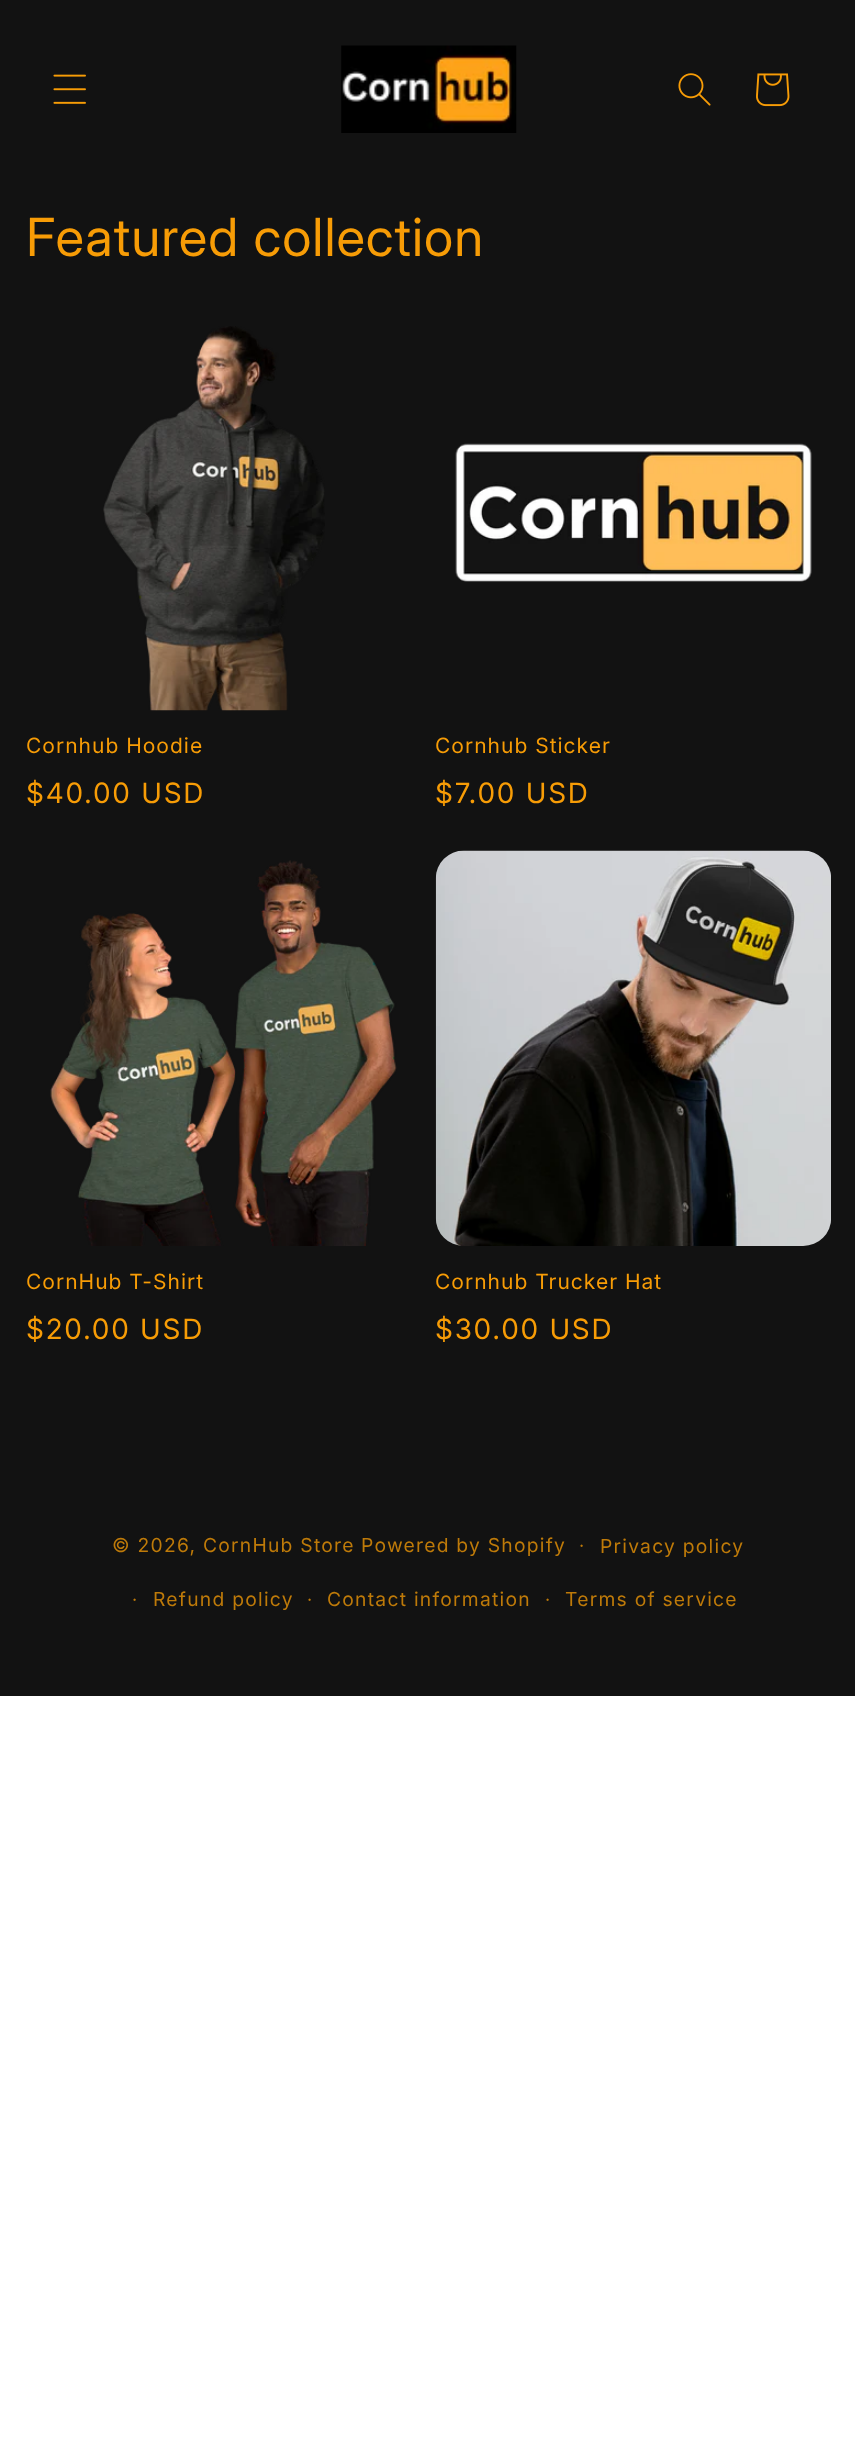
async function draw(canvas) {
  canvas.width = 855;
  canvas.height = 2438;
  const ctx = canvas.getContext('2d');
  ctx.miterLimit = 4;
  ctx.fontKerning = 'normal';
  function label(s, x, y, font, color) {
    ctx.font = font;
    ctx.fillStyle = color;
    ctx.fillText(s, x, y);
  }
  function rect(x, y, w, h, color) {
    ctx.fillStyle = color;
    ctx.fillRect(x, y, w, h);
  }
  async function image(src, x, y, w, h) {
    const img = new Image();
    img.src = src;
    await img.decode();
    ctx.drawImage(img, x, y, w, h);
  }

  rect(0, 0, 855, 2438, '#fff');
  rect(0, 0, 855, 1696, '#121212');
  await image('assets/img1.png', 53, 74, 33, 30);
  await image('assets/img2.png', 341, 45, 176, 88);
  await image('assets/img3.png', 678, 73, 33, 33);
  await image('assets/img4.png', 756, 73, 34, 34);
  ctx.letterSpacing = '1px';
  label('Featured collection', 26, 256, '52.5px "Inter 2"', '#f79c06');
  await image('assets/img5.png', 103, 326, 222, 385);
  label('Cornhub Hoodie', 26, 753, '21px Inter', '#f79c06');
  ctx.letterSpacing = '1.75px';
  label('$40.00 USD', 26, 803, '28px "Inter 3"', '#f79c06');
  await image('assets/img6.png', 455, 443, 357, 139);
  ctx.letterSpacing = '1px';
  label('Cornhub Sticker', 435, 753, '21px Inter', '#f79c06');
  ctx.letterSpacing = '1.75px';
  label('$7.00 USD', 435, 803, '28px "Inter 3"', '#f79c06');
  await image('assets/img7.png', 50, 860, 347, 386);
  ctx.letterSpacing = '1px';
  label('CornHub T-Shirt', 26, 1289, '21px Inter', '#f79c06');
  ctx.letterSpacing = '1.75px';
  label('$20.00 USD', 26, 1339, '28px "Inter 3"', '#f79c06');
  await image('assets/img8.png', 435, 850, 396, 396);
  ctx.letterSpacing = '1px';
  label('Cornhub Trucker Hat', 435, 1289, '21px Inter', '#f79c06');
  ctx.letterSpacing = '1.75px';
  label('$30.00 USD', 435, 1339, '28px "Inter 3"', '#f79c06');
  ctx.letterSpacing = '1.25px';
  label('© 2026, CornHub Store', 112, 1552, '19.25px Inter', '#be7a09');
  label('Powered by Shopify', 361, 1552, '19.25px Inter', '#be7a09');
  label('·', 579, 1552, '18px Inter', '#be7a09');
  label('Privacy policy', 600, 1553, '19.25px Inter', '#be7a09');
  label('·', 132, 1606, '18px Inter', '#be7a09');
  label('Refund policy', 153, 1606, '19.25px Inter', '#be7a09');
  label('·', 307, 1606, '18px Inter', '#be7a09');
  label('Contact information', 327, 1606, '19.25px Inter', '#be7a09');
  label('·', 545, 1606, '18px Inter', '#be7a09');
  label('Terms of service', 565, 1606, '19.25px Inter', '#be7a09');
}

draw(document.querySelector('canvas'));
